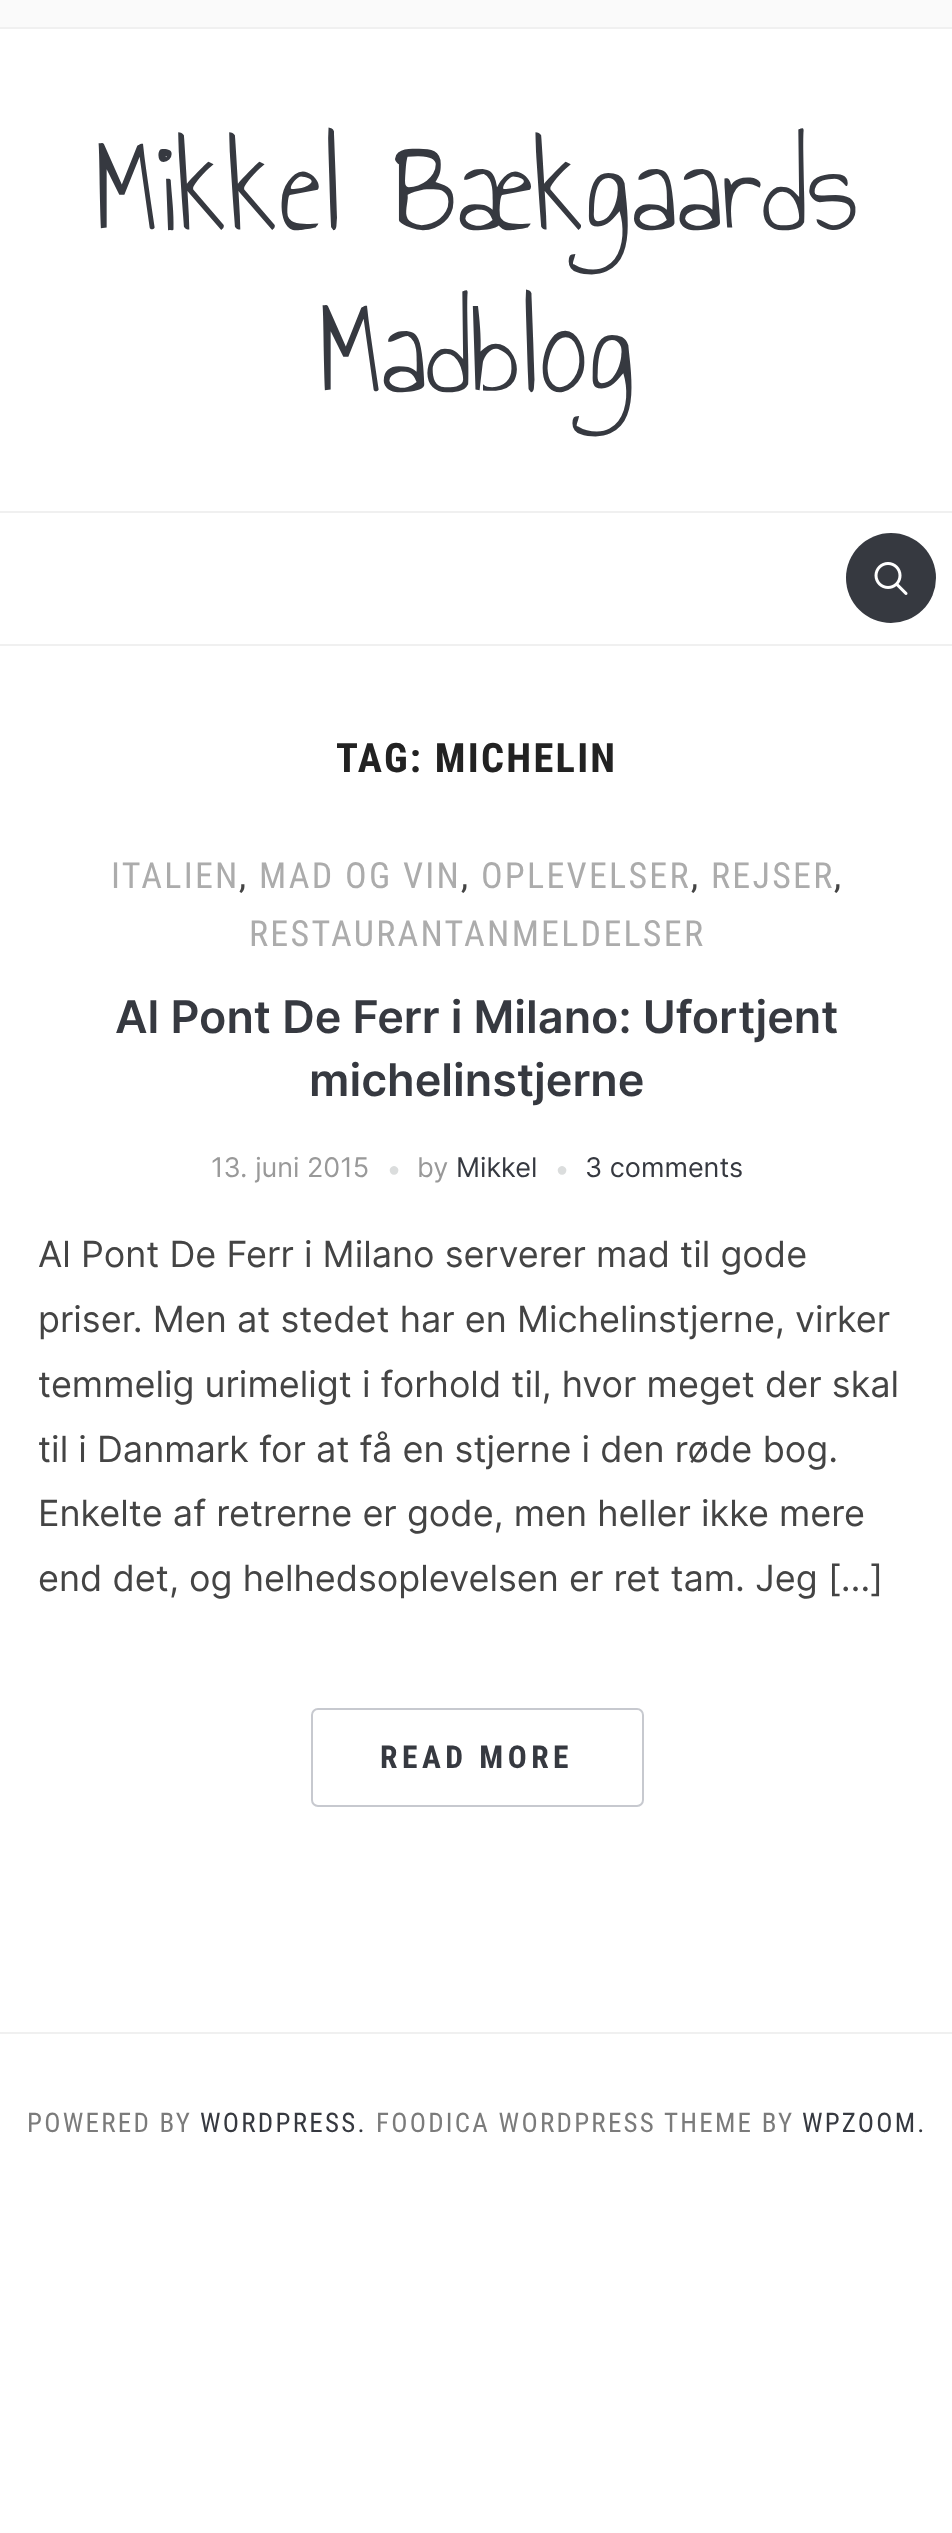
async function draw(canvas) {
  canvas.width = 952;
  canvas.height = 2533;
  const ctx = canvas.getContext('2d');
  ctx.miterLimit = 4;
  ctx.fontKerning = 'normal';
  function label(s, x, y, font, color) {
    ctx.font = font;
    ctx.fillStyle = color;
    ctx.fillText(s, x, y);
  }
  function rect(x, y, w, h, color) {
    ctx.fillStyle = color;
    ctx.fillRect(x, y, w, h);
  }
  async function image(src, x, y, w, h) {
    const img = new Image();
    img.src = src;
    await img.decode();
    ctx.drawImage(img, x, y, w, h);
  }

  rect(0, 0, 952, 2533, '#fff');
  rect(0, 0, 952, 27, '#fafafa');
  rect(0, 27, 952, 2, '#f0f0f0');
  label('Mikkel Bækgaards', 94, 230, '135px Annie Use Your Telescope', '#363940');
  label('Madblog', 318, 392, '135px Annie Use Your Telescope', '#363940');
  rect(0, 511, 952, 2, '#f0f0f0');
  rect(0, 644, 952, 2, '#f0f0f0');
  ctx.fillStyle = '#363940';
  ctx.beginPath();
  ctx.arc(891, 578, 45, 0, 2 * Math.PI);
  ctx.fill();
  await image('assets/img1.png', 874, 562, 34, 33);
  ctx.letterSpacing = '2.25px';
  label('TAG: MICHELIN', 336, 772, 'bold 40.5px Roboto Condensed', '#222');
  label('ITALIEN', 111, 888, '36px Roboto Condensed', '#acacac');
  label(',', 239, 888, '36px Roboto Condensed', '#444');
  label('MAD OG VIN', 259, 888, '36px Roboto Condensed', '#acacac');
  label(',', 461, 888, '36px Roboto Condensed', '#444');
  label('OPLEVELSER', 481, 888, '36px Roboto Condensed', '#acacac');
  label(',', 691, 888, '36px Roboto Condensed', '#444');
  label('REJSER', 711, 888, '36px Roboto Condensed', '#acacac');
  label(',', 834, 888, '36px Roboto Condensed', '#444');
  label('RESTAURANTANMELDELSER', 249, 946, '36px Roboto Condensed', '#acacac');
  ctx.letterSpacing = '0px';
  label('Al Pont De Ferr i Milano: Ufortjent', 115, 1033, '600 45px Inter', '#363940');
  label('michelinstjerne', 309, 1096, '600 45px Inter', '#363940');
  label('13. juni 2015', 211, 1177, '27px Inter', '#999');
  label('●', 388, 1176, '20px Liberation Sans', '#dbdddd');
  label('by', 417, 1177, '27px Inter', '#999');
  label('Mikkel', 456, 1177, '27px Inter', '#363940');
  label('●', 556, 1176, '20px Liberation Sans', '#dbdddd');
  label('3 comments', 585, 1177, '27px Inter', '#363940');
  label('Al Pont De Ferr i Milano serverer mad til gode', 38, 1267, '36px Inter', '#444');
  label('priser. Men at stedet har en Michelinstjerne, virker', 38, 1332, '36px Inter', '#444');
  label('temmelig urimeligt i forhold til, hvor meget der skal', 38, 1397, '36px Inter', '#444');
  label('til i Danmark for at få en stjerne i den røde bog.', 38, 1462, '36px Inter', '#444');
  label('Enkelte af retrerne er gode, men heller ikke mere', 38, 1526, '36px Inter', '#444');
  label('end det, og helhedsoplevelsen er ret tam. Jeg […]', 38, 1591, '36px Inter', '#444');
  ctx.beginPath();
  ctx.roundRect(312, 1709, 331, 97, 6);
  ctx.strokeStyle = '#c7c9cf';
  ctx.lineWidth = 2;
  ctx.stroke();
  ctx.letterSpacing = '4.5px';
  label('READ MORE', 380, 1768, 'bold 31.5px Roboto Condensed', '#363940');
  rect(0, 2032, 952, 2, '#f0f0f0');
  ctx.letterSpacing = '2.25px';
  label('POWERED BY', 27, 2132, '27px Roboto Condensed', '#7b7b7b');
  label('WORDPRESS.', 200, 2132, '27px Roboto Condensed', '#363940');
  label('FOODICA WORDPRESS THEME BY', 376, 2132, '27px Roboto Condensed', '#7b7b7b');
  label('WPZOOM.', 802, 2132, '27px Roboto Condensed', '#363940');
}

draw(document.querySelector('canvas'));
